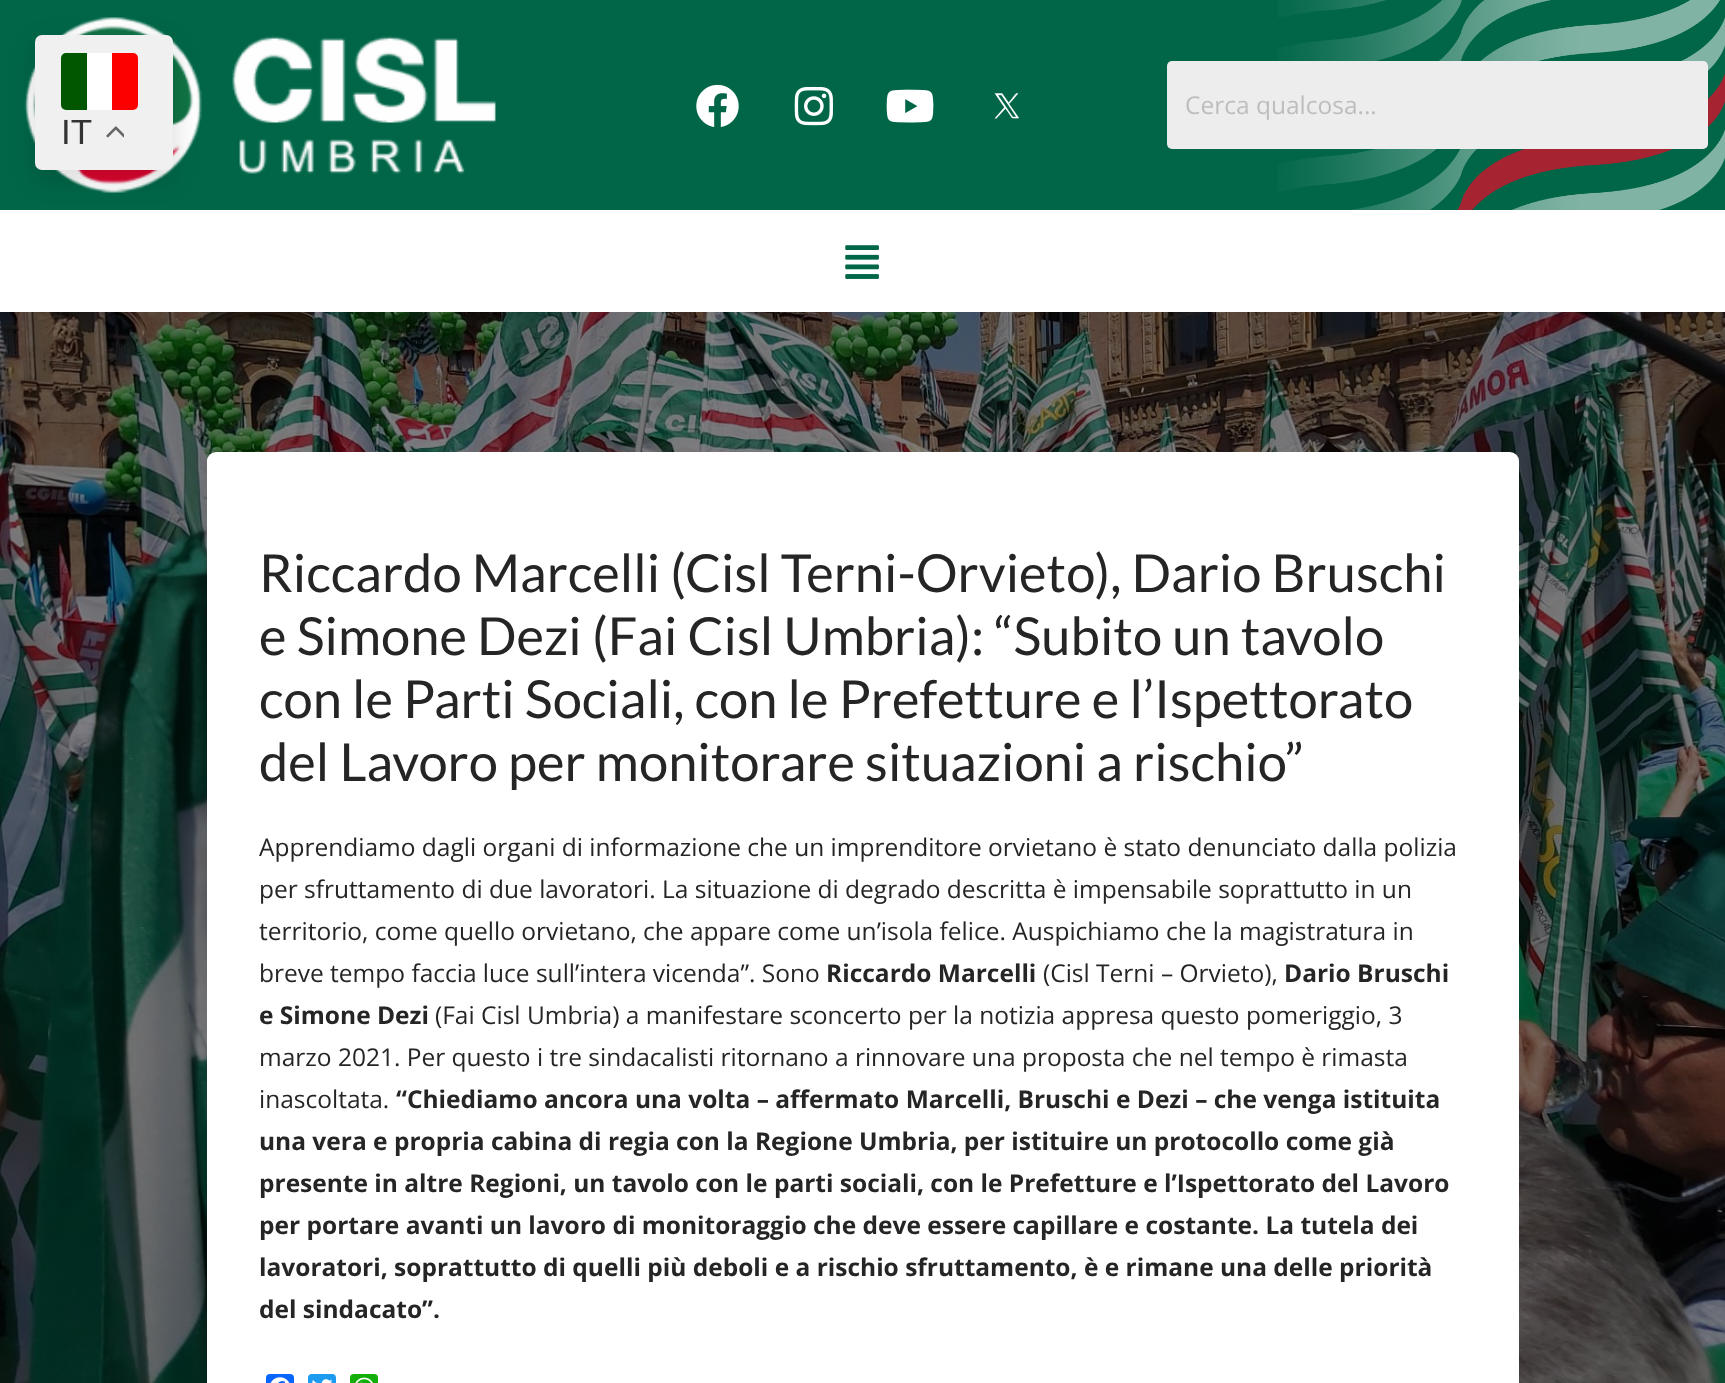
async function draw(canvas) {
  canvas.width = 1725;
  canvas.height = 1383;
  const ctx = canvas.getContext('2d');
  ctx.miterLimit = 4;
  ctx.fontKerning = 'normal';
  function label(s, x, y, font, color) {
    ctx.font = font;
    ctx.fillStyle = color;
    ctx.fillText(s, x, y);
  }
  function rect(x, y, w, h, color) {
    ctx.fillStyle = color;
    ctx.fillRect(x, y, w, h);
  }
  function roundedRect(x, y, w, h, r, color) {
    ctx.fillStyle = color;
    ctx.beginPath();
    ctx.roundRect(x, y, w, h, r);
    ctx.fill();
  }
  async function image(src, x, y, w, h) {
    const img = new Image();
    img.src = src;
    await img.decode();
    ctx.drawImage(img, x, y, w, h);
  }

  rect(0, 0, 1725, 1383, '#fff');
  rect(0, 0, 1725, 210, '#016648');
  await image('assets/img3.png', 24, 17, 472, 176);
  ctx.fillStyle = '#00000026';
  ctx.filter = 'blur(13px)';
  ctx.beginPath();
  ctx.roundRect(35, 44, 138, 135, 7);
  ctx.fill();
  ctx.filter = 'none';
  roundedRect(35, 35, 138, 135, 7, '#f0f0f0');
  roundedRect(61, 53, 77, 57, 5, '#fff');
  ctx.fillStyle = '#005700';
  ctx.beginPath();
  ctx.roundRect(61, 53, 26, 57, [5, 0, 0, 5]);
  ctx.fill();
  ctx.fillStyle = '#fc0000';
  ctx.beginPath();
  ctx.roundRect(112, 53, 26, 57, [0, 5, 5, 0]);
  ctx.fill();
  label('IT', 61, 144, '35px Liberation Sans', '#333');
  await image('assets/img1.png', 106, 126, 18, 12);
  await image('assets/img2.png', 1278, 0, 447, 210);
  await image('assets/img4.png', 696, 84, 43, 43);
  await image('assets/img5.png', 794, 86, 39, 40);
  await image('assets/img6.png', 886, 89, 48, 34);
  await image('assets/img7.png', 994, 93, 25, 26);
  roundedRect(1167, 61, 541, 88, 5, '#ededed');
  label('Cerca qualcosa...', 1185, 114, '24.5px Open Sans', '#bdbdbd');
  await image('assets/img8.png', 845, 245, 34, 34);
  await image('assets/img9.png', 0, 312, 1725, 1071);
  roundedRect(207, 452, 1312, 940, 9, '#fff');
  label('Riccardo Marcelli (Cisl Terni-Orvieto), Dario Bruschi', 259, 592, '52.5px Lato', '#252525');
  label('e Simone Dezi (Fai Cisl Umbria): “Subito un tavolo', 259, 655, '52.5px Lato', '#252525');
  label('con le Parti Sociali, con le Prefetture e l’Ispettorato', 259, 718, '52.5px Lato', '#252525');
  label('del Lavoro per monitorare situazioni a rischio”', 259, 781, '52.5px Lato', '#252525');
  label('Apprendiamo dagli organi di informazione che un imprenditore orvietano è stato denunciato dalla polizia', 259, 856, '24.5px Open Sans', '#252525');
  label('per sfruttamento di due lavoratori. La situazione di degrado descritta è impensabile soprattutto in un', 259, 898, '24.5px Open Sans', '#252525');
  label('territorio, come quello orvietano, che appare come un’isola felice. Auspichiamo che la magistratura in', 259, 940, '24.5px Open Sans', '#252525');
  label('breve tempo faccia luce sull’intera vicenda”. Sono', 259, 982, '24.5px Open Sans', '#252525');
  label('Riccardo Marcelli', 826, 982, 'bold 24.5px Open Sans', '#252525');
  label('(Cisl Terni – Orvieto),', 1043, 982, '24.5px Open Sans', '#252525');
  label('Dario Bruschi', 1284, 982, 'bold 24.5px Open Sans', '#252525');
  label('e Simone Dezi', 259, 1024, 'bold 24.5px Open Sans', '#252525');
  label('(Fai Cisl Umbria) a manifestare sconcerto per la notizia appresa questo pomeriggio, 3', 435, 1024, '24.5px Open Sans', '#252525');
  label('marzo 2021. Per questo i tre sindacalisti ritornano a rinnovare una proposta che nel tempo è rimasta', 259, 1066, '24.5px Open Sans', '#252525');
  label('inascoltata.', 259, 1108, '24.5px Open Sans', '#252525');
  label('“Chiediamo ancora una volta – affermato Marcelli, Bruschi e Dezi – che venga istituita', 396, 1108, 'bold 24.5px Open Sans', '#252525');
  label('una vera e propria cabina di regia con la Regione Umbria, per istituire un protocollo come già', 259, 1150, 'bold 24.5px Open Sans', '#252525');
  label('presente in altre Regioni, un tavolo con le parti sociali, con le Prefetture e l’Ispettorato del Lavoro', 259, 1192, 'bold 24.5px Open Sans', '#252525');
  label('per portare avanti un lavoro di monitoraggio che deve essere capillare e costante. La tutela dei', 259, 1234, 'bold 24.5px Open Sans', '#252525');
  label('lavoratori, soprattutto di quelli più deboli e a rischio sfruttamento, è e rimane una delle priorità', 259, 1276, 'bold 24.5px Open Sans', '#252525');
  label('del sindacato”.', 259, 1318, 'bold 24.5px Open Sans', '#252525');
  roundedRect(266, 1374, 28, 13, 4, '#0866ff');
  await image('assets/img10.png', 270, 1377, 20, 6);
  roundedRect(308, 1374, 28, 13, 4, '#1d9bf0');
  await image('assets/img11.png', 312, 1379, 21, 4);
  roundedRect(350, 1374, 28, 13, 4, '#12af0a');
  await image('assets/img12.png', 355, 1377, 18, 6);
}

draw(document.querySelector('canvas'));
